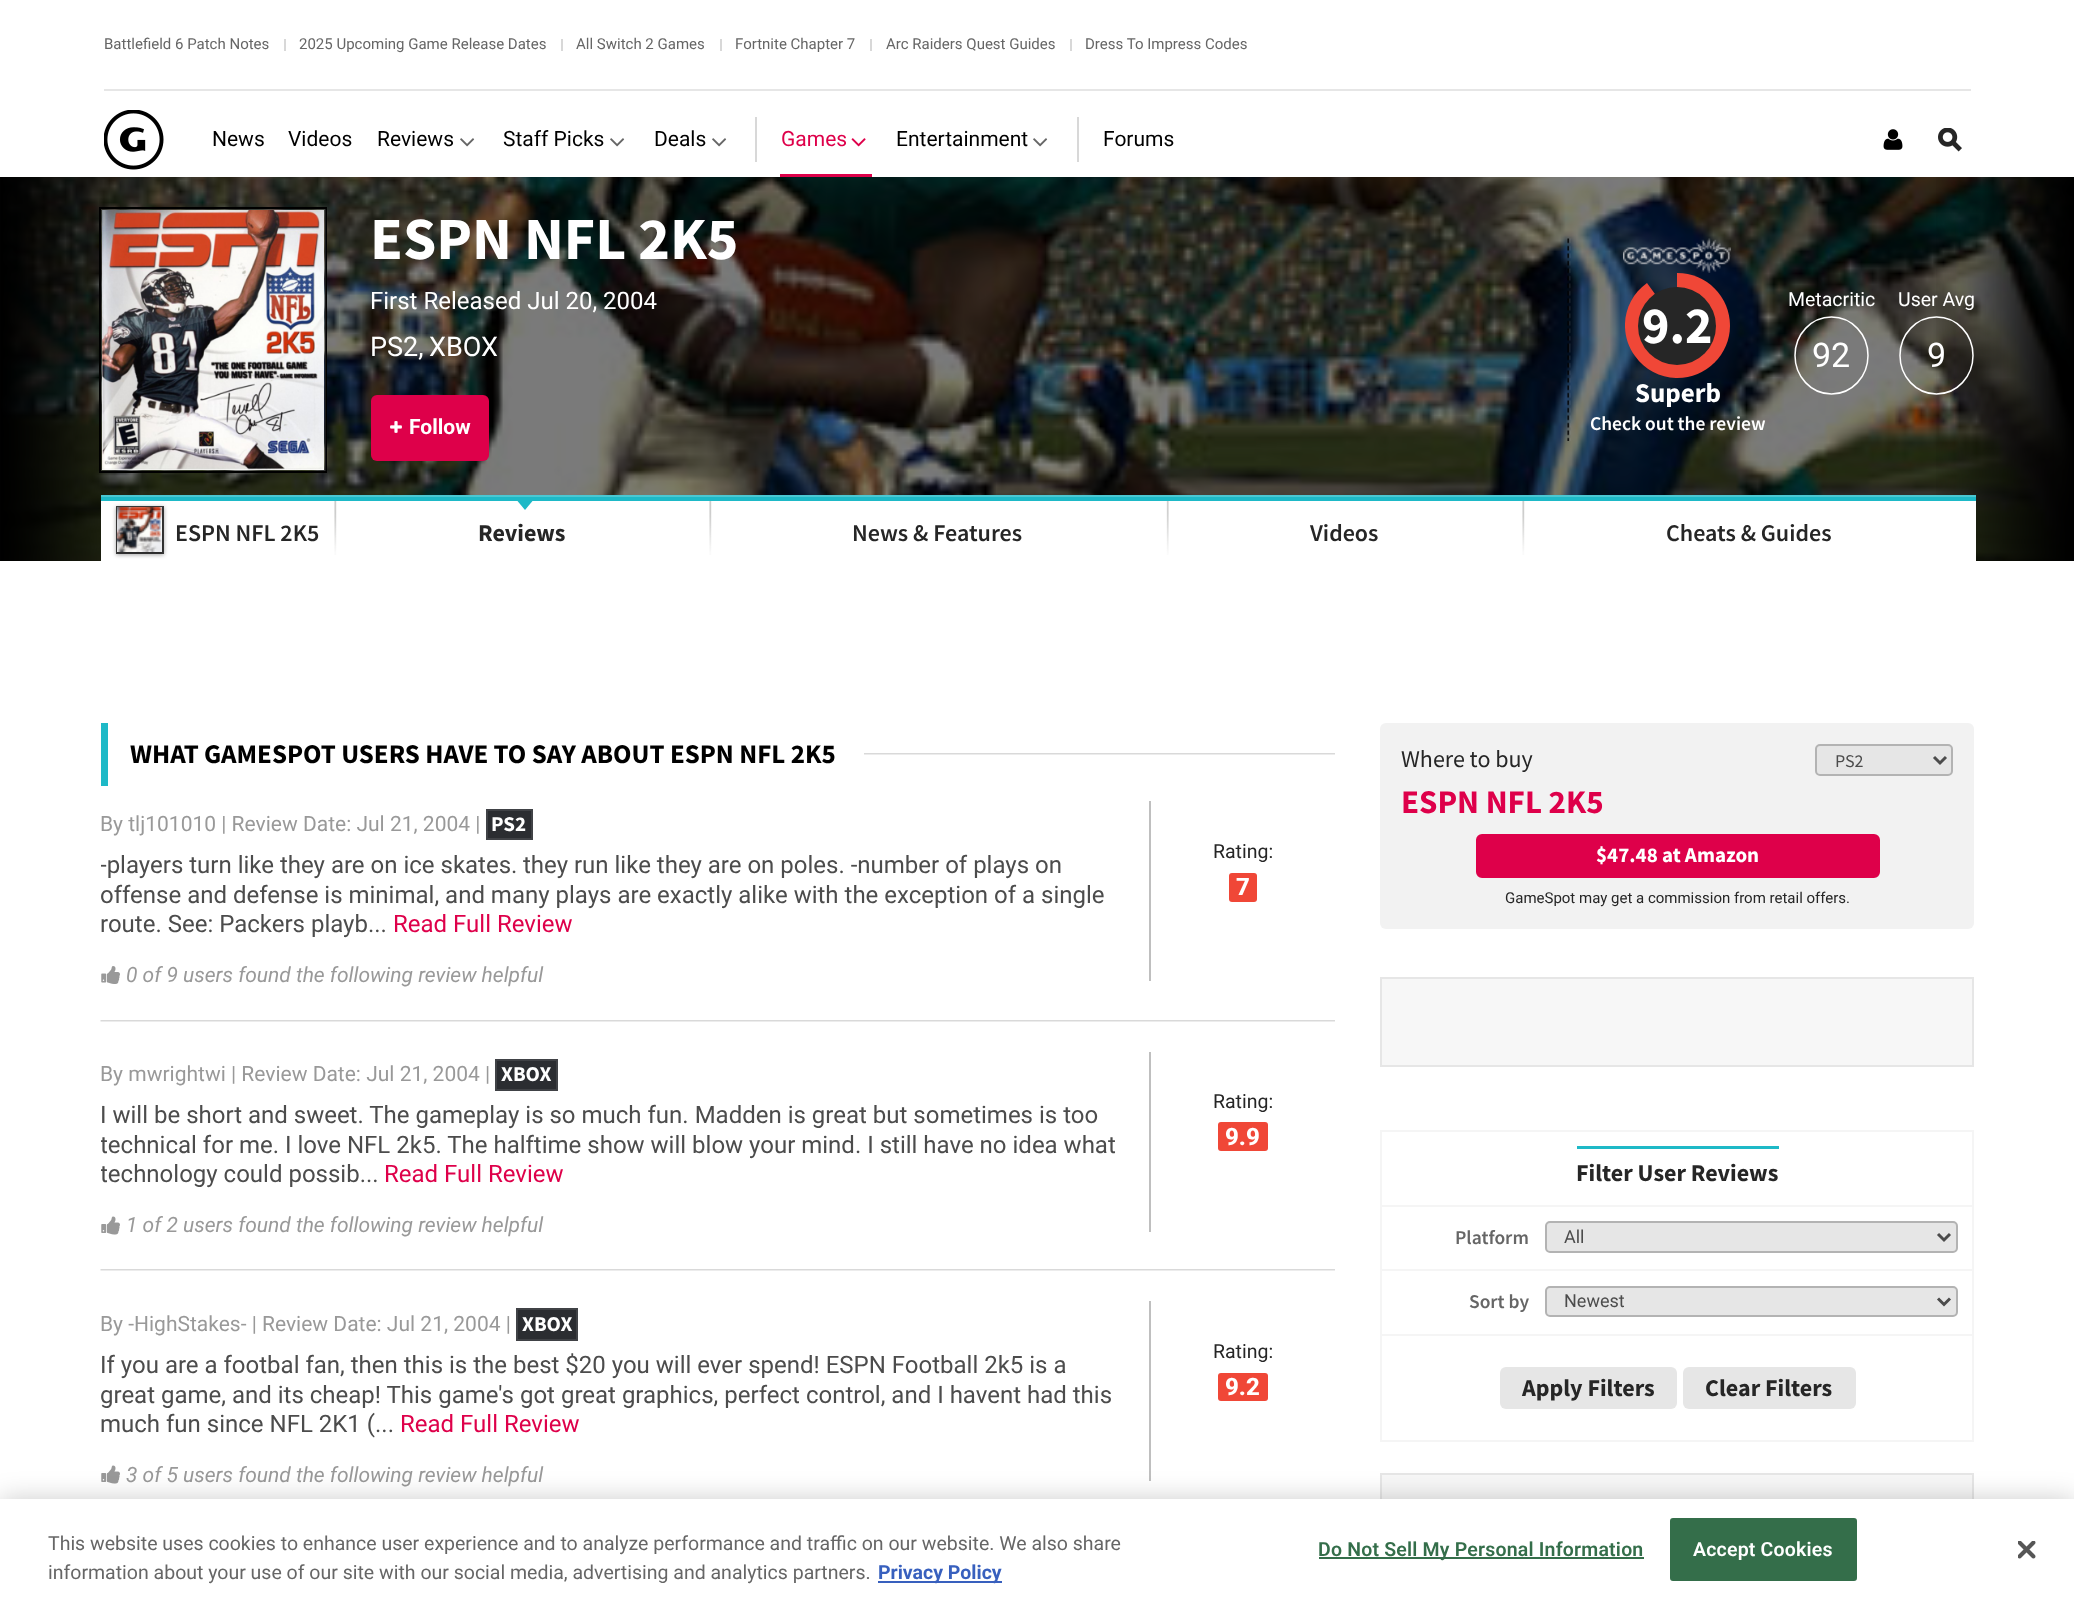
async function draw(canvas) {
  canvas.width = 2074;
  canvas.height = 1605;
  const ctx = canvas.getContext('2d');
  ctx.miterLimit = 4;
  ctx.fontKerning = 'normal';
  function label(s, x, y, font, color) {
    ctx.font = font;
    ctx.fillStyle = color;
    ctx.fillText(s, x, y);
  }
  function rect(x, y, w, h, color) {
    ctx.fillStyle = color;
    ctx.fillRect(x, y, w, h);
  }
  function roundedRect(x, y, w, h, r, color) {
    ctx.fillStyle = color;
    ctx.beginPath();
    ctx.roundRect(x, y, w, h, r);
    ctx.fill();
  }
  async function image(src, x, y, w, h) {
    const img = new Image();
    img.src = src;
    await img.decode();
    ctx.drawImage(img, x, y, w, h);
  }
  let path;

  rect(0, 0, 2074, 1605, '#fff');
  rect(104, 89, 1867, 2, '#e6e6e6');
  label('Battlefield 6 Patch Notes', 104, 49, '15px Roboto', '#666');
  rect(284, 39, 2, 12, '#d8d8d8');
  label('2025 Upcoming Game Release Dates', 299, 49, '15px Roboto', '#666');
  rect(561, 39, 2, 12, '#d8d8d8');
  label('All Switch 2 Games', 576, 49, '15px Roboto', '#666');
  rect(720, 39, 2, 12, '#d8d8d8');
  label('Fortnite Chapter 7', 735, 49, '15px Roboto', '#666');
  rect(870, 39, 2, 12, '#d8d8d8');
  label('Arc Raiders Quest Guides', 886, 49, '15px Roboto', '#666');
  rect(1070, 39, 2, 12, '#d8d8d8');
  label('Dress To Impress Codes', 1085, 49, '15px Roboto', '#666');
  await image('assets/img1.png', 104, 110, 60, 60);
  label('News', 212, 146, '21px Roboto', '#000');
  label('Videos', 288, 146, '21px Roboto', '#000');
  label('Reviews', 377, 146, '21px Roboto', '#000');
  await image('assets/img2.png', 460, 138, 15, 9);
  label('Staff Picks', 503, 146, '21px Roboto', '#000');
  await image('assets/img2.png', 610, 138, 15, 9);
  label('Deals', 654, 146, '21px Roboto', '#000');
  await image('assets/img2.png', 712, 138, 15, 9);
  rect(755, 117, 2, 45, '#d8d8d8');
  label('Games', 781, 146, '21px Roboto', '#de004a');
  await image('assets/img3.png', 851, 138, 15, 9);
  rect(780, 174, 92, 3, '#de004a');
  label('Entertainment', 896, 146, '21px Roboto', '#000');
  await image('assets/img2.png', 1033, 138, 15, 9);
  rect(1077, 117, 2, 45, '#d8d8d8');
  label('Forums', 1103, 146, '21px Roboto', '#000');
  await image('assets/img4.png', 1883, 129, 20, 21);
  await image('assets/img5.png', 1938, 128, 24, 24);
  await image('assets/img6.png', 1, 177, 2073, 384);
  await image('assets/img7.png', 0, 177, 139, 324);
  ctx.strokeStyle = '#000';
  ctx.lineWidth = 2;
  ctx.strokeRect(100, 208, 226, 264);
  ctx.strokeStyle = '#ffffff1a';
  ctx.strokeRect(102, 210, 223, 260);
  rect(102, 469, 222, 1, '#fff');
  await image('assets/img8.png', 102, 210, 222, 260);
  await image('assets/img9.png', 102, 210, 222, 141);
  label('ESPN NFL 2K5', 370, 259, 'bold 60px Source Sans Pro', '#fff');
  label('First Released Jul 20, 2004', 370, 309, '24px Roboto', '#fff');
  label('PS2,', 370, 356, '27px Roboto', '#fff');
  label('XBOX', 429, 356, '27px Roboto', '#fff');
  roundedRect(371, 395, 118, 66, 6, '#de004a');
  await image('assets/img10.png', 390, 421, 12, 12);
  label('Follow', 409, 434, 'bold 21px Roboto', '#fff');
  await image('assets/img11.png', 1567, 238, 4, 203);
  await image('assets/img12.png', 1623, 238, 108, 35);
  ctx.save();
  ctx.beginPath();
  ctx.rect(1625, 273, 52, 105);
  ctx.clip();
  ctx.fillStyle = '#f04737';
  path = new Path2D('M1647 283L1709 368C1685 385 1652 380 1635 356C1618 333 1623 300 1647 283Z');
  ctx.fill(path);
  ctx.restore();
  ctx.fillStyle = '#f04737';
  ctx.beginPath();
  ctx.roundRect(1677, 273, 53, 105, [0, 52.5, 52.5, 0]);
  ctx.fill();
  ctx.fillStyle = '#262626';
  ctx.beginPath();
  ctx.arc(1677, 326, 39, 0, 2 * Math.PI);
  ctx.fill();
  label('9.2', 1642, 343, 'bold 52px Source Sans Pro', '#fff');
  label('Superb', 1635, 402, 'bold 27px Source Sans Pro', '#fff');
  label('Check out the review', 1590, 430, '600 19.5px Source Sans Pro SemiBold', '#fff');
  label('Metacritic', 1788, 306, '19.5px Roboto', '#fff');
  path = new Path2D('M1831.5 317C1852 317 1868 334.5 1868 355.5C1868 376.5 1852 394 1831.5 394C1811 394 1795 376.5 1795 355.5C1795 334.5 1811 317 1831.5 317Z');
  ctx.strokeStyle = '#fff';
  ctx.lineWidth = 1.5;
  ctx.stroke(path);
  label('92', 1812, 367, '34px Roboto', '#fff');
  await image('assets/img13.png', 1936, 177, 138, 324);
  label('User Avg', 1898, 306, '19.5px Roboto', '#fff');
  path = new Path2D('M1936.5 317C1957 317 1973 334.5 1973 355.5C1973 376.5 1957 394 1936.5 394C1916 394 1900 376.5 1900 355.5C1900 334.5 1916 317 1936.5 317Z');
  ctx.stroke(path);
  label('9', 1927, 367, '34px Roboto', '#fff');
  await image('assets/img14.png', 0, 501, 101, 60);
  await image('assets/img15.png', 1976, 501, 98, 60);
  rect(101, 501, 1875, 60, '#fff');
  rect(101, 497, 1875, 4, '#1eb9c7');
  rect(101, 495, 1875, 2, '#4bc7d2');
  ctx.fillStyle = '#00000059';
  ctx.filter = 'blur(2px)';
  ctx.beginPath();
  ctx.rect(116, 507, 48, 48);
  ctx.fill();
  ctx.filter = 'none';
  ctx.strokeStyle = '#000000bf';
  ctx.lineWidth = 2;
  ctx.strokeRect(117, 507, 46, 46);
  await image('assets/img16.png', 117, 507, 45, 45);
  label('ESPN NFL 2K5', 175, 541, '600 24px Source Sans Pro SemiBold', '#262626');
  await image('assets/img17.png', 334, 501, 3, 54);
  ctx.fillStyle = '#1eb9c7';
  path = new Path2D('M517.5 501H532.5L525 510Z');
  ctx.fill(path);
  label('Reviews', 478, 541, 'bold 24px Source Sans Pro', '#262626');
  await image('assets/img17.png', 709, 501, 3, 54);
  label('News & Features', 852, 541, '600 24px Source Sans Pro SemiBold', '#262626');
  await image('assets/img18.png', 1166, 501, 3, 54);
  label('Videos', 1310, 541, '600 24px Source Sans Pro SemiBold', '#262626');
  await image('assets/img17.png', 1522, 501, 3, 54);
  label('Cheats & Guides', 1666, 541, '600 24px Source Sans Pro SemiBold', '#262626');
  rect(101, 723, 7, 63, '#1eb9c7');
  label('WHAT GAMESPOT USERS HAVE TO SAY ABOUT ESPN NFL 2K5', 130, 763, 'bold 27px Source Sans Pro', '#000');
  await image('assets/img19.png', 864, 753, 471, 2);
  label('By tlj101010 | Review Date: Jul 21, 2004 |', 100, 831, '21px Roboto', '#999');
  ctx.fillStyle = '#2b2d31';
  ctx.beginPath();
  ctx.rect(487, 810, 45, 29);
  ctx.fill();
  ctx.strokeStyle = '#404246';
  ctx.stroke();
  label('PS2', 491, 831, 'bold 21px Source Sans Pro', '#fff');
  ctx.save();
  ctx.beginPath();
  ctx.rect(101, 801, 1026, 188);
  ctx.clip();
  label('-players turn like they are on ice skates.', 100, 873, '24px Roboto', '#4c4c4c');
  ctx.restore();
  label('they run like they are on poles. -number of plays on', 523, 873, '24px Roboto', '#4c4c4c');
  ctx.save();
  ctx.beginPath();
  ctx.rect(101, 801, 1026, 188);
  ctx.clip();
  label('offense and defense is minimal, and many plays are exactly alike with the exception of a single', 100, 903, '24px Roboto', '#4c4c4c');
  ctx.restore();
  label('route. See: Packers playb...', 100, 932, '24px Roboto', '#4c4c4c');
  label('Read Full Review', 393, 932, '24px Roboto', '#de004a');
  await image('assets/img20.png', 101, 966, 19, 18);
  label('0 of 9 users found the following review helpful', 126, 982, 'italic 21px Roboto', '#999');
  rect(1149, 801, 2, 180, '#bfbfbf');
  label('Rating:', 1213, 858, '19.5px Roboto', '#262626');
  roundedRect(1229, 873, 28, 29, 3, '#f04737');
  label('7', 1236, 895, '800 24px Roboto', '#fff');
  await image('assets/img21.png', 100, 1020, 1235, 2);
  label('By mwrightwi | Review Date: Jul 21, 2004 |', 100, 1081, '21px Roboto', '#999');
  ctx.fillStyle = '#2b2d31';
  ctx.beginPath();
  ctx.rect(496, 1060, 61, 30);
  ctx.fill();
  ctx.stroke();
  label('XBOX', 501, 1081, 'bold 21px Source Sans Pro', '#fff');
  label('I will be short and sweet. The gameplay is so much fun. Madden is great but sometimes is too', 100, 1123, '24px Roboto', '#4c4c4c');
  ctx.save();
  ctx.beginPath();
  ctx.rect(101, 1052, 1026, 187);
  ctx.clip();
  label('technical for me.', 100, 1153, '24px Roboto', '#4c4c4c');
  ctx.restore();
  label('I love NFL 2k5. The halftime show will blow your mind. I still have no idea what', 285, 1153, '24px Roboto', '#4c4c4c');
  ctx.save();
  ctx.beginPath();
  ctx.rect(101, 1052, 1026, 187);
  ctx.clip();
  label('technology could possib...', 100, 1182, '24px Roboto', '#4c4c4c');
  ctx.restore();
  label('Read Full Review', 384, 1182, '24px Roboto', '#de004a');
  await image('assets/img22.png', 101, 1216, 19, 19);
  label('1 of 2 users found the following review helpful', 126, 1232, 'italic 21px Roboto', '#999');
  rect(1149, 1052, 2, 180, '#bfbfbf');
  label('Rating:', 1213, 1108, '19.5px Roboto', '#262626');
  roundedRect(1218, 1122, 50, 29, 3, '#f04737');
  label('9.9', 1225, 1145, '800 24px Roboto', '#fff');
  await image('assets/img21.png', 100, 1269, 1235, 2);
  label('By -HighStakes- | Review Date: Jul 21, 2004 |', 100, 1331, '21px Roboto', '#999');
  ctx.fillStyle = '#2b2d31';
  ctx.beginPath();
  ctx.rect(517, 1309, 60, 31);
  ctx.fill();
  ctx.stroke();
  label('XBOX', 522, 1331, 'bold 21px Source Sans Pro', '#fff');
  label('If you are a footbal fan, then this is the best $20 you will ever spend! ESPN Football 2k5 is a', 100, 1373, '24px Roboto', '#4c4c4c');
  label('great game, and its cheap! This game\'s got great graphics, perfect control, and I havent had this', 100, 1403, '24px Roboto', '#4c4c4c');
  label('much fun since NFL 2K1 (...', 100, 1432, '24px Roboto', '#4c4c4c');
  label('Read Full Review', 400, 1432, '24px Roboto', '#de004a');
  await image('assets/img22.png', 101, 1465, 19, 19);
  label('3 of 5 users found the following review helpful', 126, 1482, 'italic 21px Roboto', '#999');
  rect(1149, 1301, 2, 180, '#bfbfbf');
  label('Rating:', 1213, 1358, '19.5px Roboto', '#262626');
  roundedRect(1218, 1373, 50, 28, 3, '#f04737');
  label('9.2', 1225, 1395, '800 24px Roboto', '#fff');
  roundedRect(1380, 723, 594, 206, 6, '#f2f2f2');
  label('Where to buy', 1401, 767, '24px Source Sans Pro', '#262626');
  ctx.fillStyle = '#e6e6e6';
  ctx.beginPath();
  ctx.roundRect(1816, 745, 136, 30, 4);
  ctx.fill();
  ctx.strokeStyle = '#b3b3b3';
  ctx.stroke();
  path = new Path2D('M1934 757L1940 763L1946 757');
  ctx.strokeStyle = '#4c4c4c';
  ctx.lineWidth = 3;
  ctx.stroke(path);
  label('PS2', 1835, 767, '18px Source Sans Pro', '#4c4c4c');
  label('ESPN NFL 2K5', 1401, 813, 'bold 33px Source Sans Pro', '#de004a');
  ctx.beginPath();
  ctx.roundRect(1477, 835, 402, 42, 5);
  ctx.fill();
  ctx.strokeStyle = '#de004a';
  ctx.lineWidth = 2;
  ctx.stroke();
  label('$47.48 at Amazon', 1596, 862, 'bold 21px Source Sans Pro', '#fff');
  label('GameSpot may get a commission from retail offers.', 1505, 903, '15px Roboto', '#262626');
  ctx.fillStyle = '#f7f7f7';
  ctx.beginPath();
  ctx.rect(1381, 978, 592, 88);
  ctx.fill();
  ctx.strokeStyle = '#e6e6e6';
  ctx.stroke();
  ctx.strokeStyle = '#f5f5f5';
  ctx.strokeRect(1381, 1131, 592, 310);
  rect(1577, 1146, 202, 3, '#1eb9c7');
  label('Filter User Reviews', 1576, 1181, 'bold 24px Source Sans Pro', '#262626');
  rect(1382, 1205, 591, 2, '#f5f5f5');
  label('Platform', 1455, 1244, '600 19.5px Source Sans Pro SemiBold', '#666');
  ctx.fillStyle = '#e6e6e6';
  ctx.beginPath();
  ctx.roundRect(1546, 1222, 411, 30, 4);
  ctx.fill();
  ctx.strokeStyle = '#b3b3b3';
  ctx.stroke();
  path = new Path2D('M1938 1234L1944 1240L1950 1234');
  ctx.strokeStyle = '#4c4c4c';
  ctx.lineWidth = 3;
  ctx.stroke(path);
  label('All', 1564, 1243, '18px Roboto', '#4c4c4c');
  rect(1382, 1269, 591, 2, '#f5f5f5');
  label('Sort by', 1469, 1308, '600 19.5px Source Sans Pro SemiBold', '#666');
  ctx.fillStyle = '#e6e6e6';
  ctx.beginPath();
  ctx.roundRect(1546, 1287, 411, 29, 4);
  ctx.fill();
  ctx.strokeStyle = '#b3b3b3';
  ctx.lineWidth = 2;
  ctx.stroke();
  path = new Path2D('M1938 1298.5L1944 1304.5L1950 1298.5');
  ctx.strokeStyle = '#4c4c4c';
  ctx.lineWidth = 3;
  ctx.stroke(path);
  label('Newest', 1564, 1307, '18px Roboto', '#4c4c4c');
  rect(1382, 1334, 591, 2, '#f5f5f5');
  roundedRect(1500, 1367, 177, 42, 6, '#e6e6e6');
  label('Apply Filters', 1522, 1396, 'bold 24px Source Sans Pro', '#262626');
  roundedRect(1683, 1367, 173, 42, 6, '#e6e6e6');
  label('Clear Filters', 1705, 1396, 'bold 24px Source Sans Pro', '#262626');
  rect(1382, 1475, 590, 24, '#f7f7f7');
  ctx.strokeStyle = '#e6e6e6';
  ctx.lineWidth = 2;
  ctx.strokeRect(1381, 1474, 592, 88);
  ctx.fillStyle = '#00000033';
  ctx.filter = 'blur(13.5px)';
  ctx.beginPath();
  ctx.rect(0, 1499, 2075, 106);
  ctx.fill();
  ctx.filter = 'none';
  rect(0, 1499, 2074, 106, '#fff');
  label('This website uses cookies to enhance user experience and to analyze performance and traffic on our website. We also share', 48, 1550, '19.5px Roboto', '#666');
  label('information about your use of our site with our social media, advertising and analytics partners.', 48, 1579, '19.5px Roboto', '#666');
  rect(878, 1581, 124, 2, '#3860be');
  label('Privacy Policy', 878, 1579, 'bold 19.5px Roboto', '#3860be');
  rect(1319, 1557, 325, 2, '#346e4a');
  ctx.letterSpacing = '0.2px';
  label('Do Not Sell My Personal Information', 1318, 1556, '600 19.5px Roboto', '#346e4a');
  ctx.beginPath();
  ctx.roundRect(1671, 1519, 185, 61, 2);
  ctx.fill();
  ctx.strokeStyle = '#346e4a';
  ctx.stroke();
  label('Accept Cookies', 1693, 1556, '600 19.5px Roboto', '#fff');
  await image('assets/img23.png', 2018, 1541, 18, 18);
}

draw(document.querySelector('canvas'));
